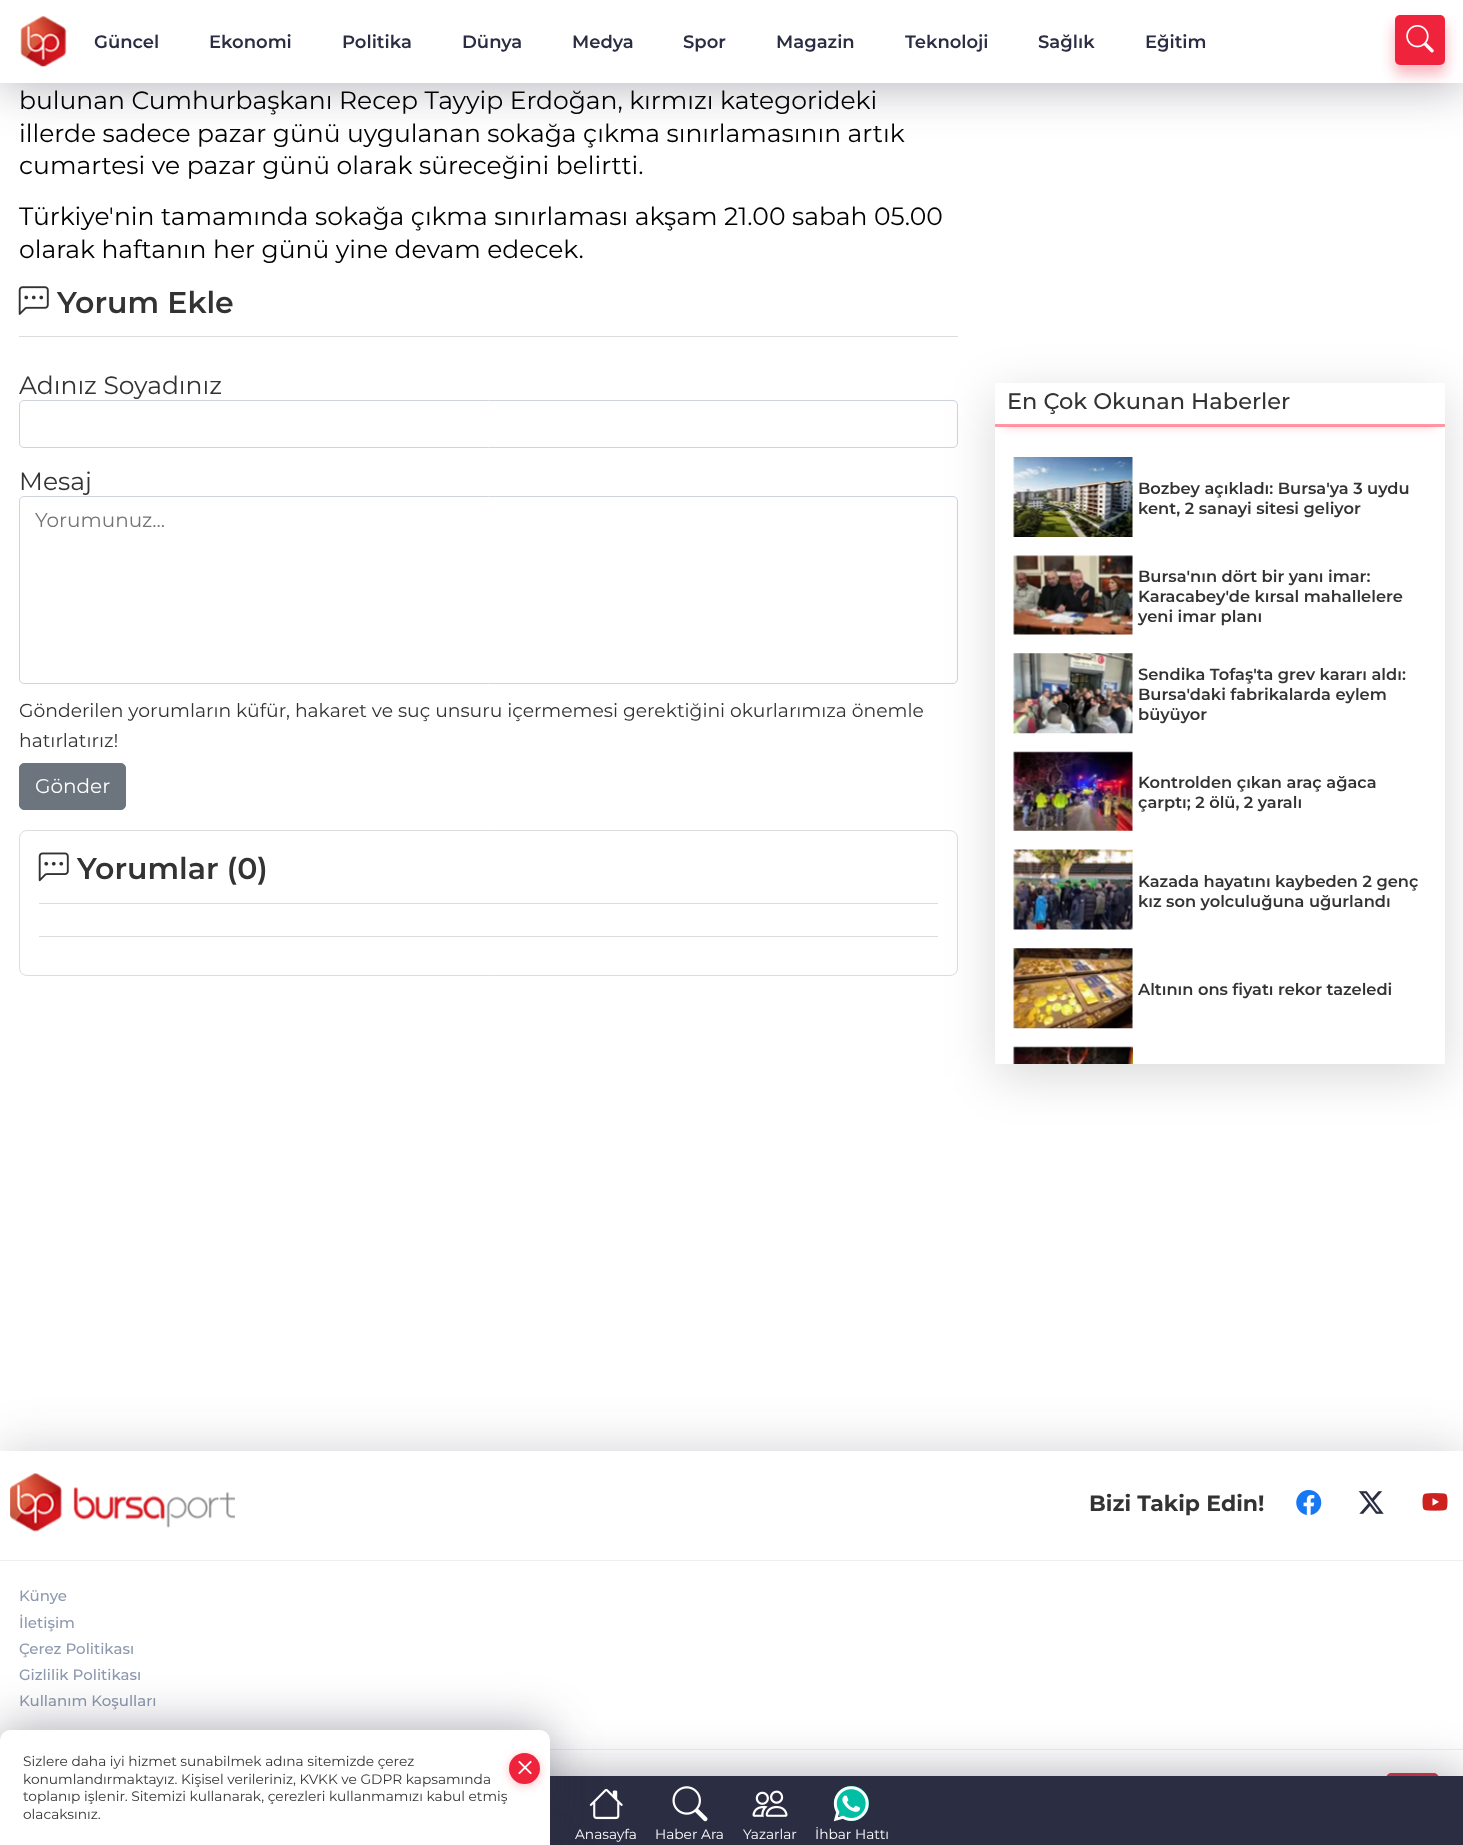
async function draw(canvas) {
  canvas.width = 1463;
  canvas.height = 1845;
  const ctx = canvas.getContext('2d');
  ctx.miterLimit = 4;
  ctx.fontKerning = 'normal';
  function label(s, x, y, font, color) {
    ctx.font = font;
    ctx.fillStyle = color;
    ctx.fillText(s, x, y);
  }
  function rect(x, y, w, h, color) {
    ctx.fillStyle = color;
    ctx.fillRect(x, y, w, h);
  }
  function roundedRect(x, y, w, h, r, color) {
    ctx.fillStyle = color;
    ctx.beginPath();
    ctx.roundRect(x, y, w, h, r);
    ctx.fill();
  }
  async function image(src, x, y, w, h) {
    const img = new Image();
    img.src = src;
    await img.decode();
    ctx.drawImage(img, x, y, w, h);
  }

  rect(0, 0, 1463, 1845, '#fff');
  ctx.fillStyle = '#2b2d425c';
  ctx.filter = 'blur(24px)';
  ctx.beginPath();
  ctx.rect(0, 4, 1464, 82);
  ctx.fill();
  ctx.filter = 'none';
  rect(0, 0, 1463, 83, '#fff');
  await image('assets/img1.png', 20, 16, 47, 51);
  label('Güncel', 94, 48, '600 18px Montserrat', '#2b2d42');
  label('Ekonomi', 209, 48, '600 18px Montserrat', '#2b2d42');
  label('Politika', 342, 48, '600 18px Montserrat', '#2b2d42');
  label('Dünya', 462, 48, '600 18px Montserrat', '#2b2d42');
  label('Medya', 572, 48, '600 18px Montserrat', '#2b2d42');
  label('Spor', 683, 48, '600 18px Montserrat', '#2b2d42');
  label('Magazin', 776, 48, '600 18px Montserrat', '#2b2d42');
  label('Teknoloji', 905, 48, '600 18px Montserrat', '#2b2d42');
  label('Sağlık', 1038, 48, '600 18px Montserrat', '#2b2d42');
  label('Eğitim', 1145, 48, '600 18px Montserrat', '#2b2d42');
  ctx.fillStyle = '#ef233c2e';
  ctx.filter = 'blur(7px)';
  ctx.beginPath();
  ctx.roundRect(1395, 24, 50, 50, 5);
  ctx.fill();
  ctx.filter = 'none';
  ctx.filter = 'blur(7px)';
  ctx.beginPath();
  ctx.roundRect(1395, 24, 50, 50, 5);
  ctx.fill();
  ctx.filter = 'none';
  roundedRect(1395, 15, 50, 50, 5, '#ef233c');
  await image('assets/img2.png', 1406, 25, 28, 28);
  label('bulunan Cumhurbaşkanı Recep Tayyip Erdoğan, kırmızı kategorideki', 19, 109, '25px Montserrat', '#000');
  label('illerde sadece pazar günü uygulanan sokağa çıkma sınırlamasının artık', 19, 142, '25px Montserrat', '#000');
  label('cumartesi ve pazar günü olarak süreceğini belirtti.', 19, 174, '25px Montserrat', '#000');
  label('Türkiye\'nin tamamında sokağa çıkma sınırlaması akşam 21.00 sabah 05.00', 19, 225, '25px Montserrat', '#000');
  label('olarak haftanın her günü yine devam edecek.', 19, 258, '25px Montserrat', '#000');
  rect(19, 336, 939, 1, '#ddd');
  await image('assets/img3.png', 18, 286, 31, 29);
  label('Yorum Ekle', 57, 313, '600 30px Montserrat', '#333');
  label('Adınız Soyadınız', 19, 394, '25px Montserrat', '#333');
  ctx.beginPath();
  ctx.roundRect(19.5, 400.5, 938, 47, 4.5);
  ctx.strokeStyle = '#ced4da';
  ctx.stroke();
  label('Mesaj', 19, 490, '25px Montserrat', '#333');
  ctx.beginPath();
  ctx.roundRect(19.5, 496.5, 938, 187, 4.5);
  ctx.stroke();
  label('Yorumunuz...', 35, 527, '20px Montserrat', '#757575');
  label('Gönderilen yorumların küfür, hakaret ve suç unsuru içermemesi gerektiğini okurlarımıza önemle', 19, 717, '18.75px Montserrat', '#333');
  label('hatırlatırız!', 19, 747, '18.75px Montserrat', '#333');
  ctx.fillStyle = '#6c757d';
  ctx.beginPath();
  ctx.roundRect(19.5, 763.5, 106, 46, 4.5);
  ctx.fill();
  ctx.strokeStyle = '#6c757d';
  ctx.stroke();
  label('Gönder', 35, 793, '20px Montserrat', '#fff');
  ctx.beginPath();
  ctx.roundRect(19.5, 830.5, 938, 145, 7.5);
  ctx.strokeStyle = '#ddd';
  ctx.stroke();
  rect(39, 903, 899, 1, '#ddd');
  await image('assets/img4.png', 38, 852, 31, 30);
  label('Yorumlar (0)', 77, 879, '600 30px Montserrat', '#333');
  rect(39, 936, 899, 1, '#ddd');
  ctx.fillStyle = '#00000026';
  ctx.filter = 'blur(25px)';
  ctx.beginPath();
  ctx.rect(995, 395, 450, 681);
  ctx.fill();
  ctx.filter = 'none';
  rect(995, 383, 450, 681, '#fff');
  ctx.save();
  ctx.beginPath();
  ctx.rect(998, 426, 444, 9);
  ctx.clip();
  ctx.fillStyle = '#ff566a61';
  ctx.filter = 'blur(5.5px)';
  ctx.beginPath();
  ctx.rect(1004, 400, 432, 26);
  ctx.fill();
  ctx.filter = 'none';
  ctx.restore();
  rect(995, 424, 450, 3, '#ff516799');
  label('En Çok Okunan Haberler', 1007, 409, '500 22.5px Montserrat', '#333');
  await image('assets/img5.png', 1013, 457, 120, 80);
  label('Bozbey açıkladı: Bursa\'ya 3 uydu', 1138, 494, '600 16.25px Montserrat', '#333');
  label('kent, 2 sanayi sitesi geliyor', 1138, 514, '600 16.25px Montserrat', '#333');
  await image('assets/img6.png', 1013, 555, 120, 80);
  label('Bursa\'nın dört bir yanı imar:', 1138, 582, '600 16.25px Montserrat', '#333');
  label('Karacabey\'de kırsal mahallelere', 1138, 602, '600 16.25px Montserrat', '#333');
  label('yeni imar planı', 1138, 622, '600 16.25px Montserrat', '#333');
  await image('assets/img7.png', 1013, 653, 120, 81);
  label('Sendika Tofaş\'ta grev kararı aldı:', 1138, 680, '600 16.25px Montserrat', '#333');
  label('Bursa\'daki fabrikalarda eylem', 1138, 700, '600 16.25px Montserrat', '#333');
  label('büyüyor', 1138, 720, '600 16.25px Montserrat', '#333');
  await image('assets/img8.png', 1013, 751, 120, 80);
  label('Kontrolden çıkan araç ağaca', 1138, 788, '600 16.25px Montserrat', '#333');
  label('çarptı; 2 ölü, 2 yaralı', 1138, 808, '600 16.25px Montserrat', '#333');
  await image('assets/img9.png', 1013, 849, 120, 81);
  label('Kazada hayatını kaybeden 2 genç', 1138, 887, '600 16.25px Montserrat', '#333');
  label('kız son yolculuğuna uğurlandı', 1138, 907, '600 16.25px Montserrat', '#333');
  await image('assets/img10.png', 1013, 948, 120, 81);
  label('Altının ons fiyatı rekor tazeledi', 1138, 995, '600 16.25px Montserrat', '#333');
  await image('assets/img11.png', 1013, 1046, 120, 18);
  ctx.fillStyle = '#2b2d4233';
  ctx.filter = 'blur(24px)';
  ctx.beginPath();
  ctx.rect(0, 1448, 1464, 393);
  ctx.fill();
  ctx.filter = 'none';
  rect(0, 1451, 1463, 325, '#fff');
  rect(0, 1560, 1463, 1, '#efefef');
  await image('assets/img12.png', 10, 1473, 225, 59);
  label('Bizi Takip Edin!', 1089, 1511, 'bold 22px Montserrat', '#333');
  await image('assets/img13.png', 1296, 1490, 26, 25);
  await image('assets/img14.png', 1358, 1491, 26, 23);
  await image('assets/img15.png', 1422, 1493, 26, 18);
  label('Künye', 19, 1601, '500 15px Montserrat', '#8d99ae');
  label('İletişim', 19, 1628, '500 15px Montserrat', '#8d99ae');
  label('Çerez Politikası', 19, 1654, '500 15px Montserrat', '#8d99ae');
  label('Gizlilik Politikası', 19, 1680, '500 15px Montserrat', '#8d99ae');
  label('Kullanım Koşulları', 19, 1706, '500 15px Montserrat', '#8d99ae');
  rect(550, 1749, 913, 1, '#efefef');
  ctx.fillStyle = '#dc3545';
  ctx.beginPath();
  ctx.roundRect(1386.5, 1773.5, 52, 46, 4.5);
  ctx.fill();
  ctx.strokeStyle = '#dc3545';
  ctx.stroke();
  ctx.fillStyle = '#2b2d425c';
  ctx.filter = 'blur(24px)';
  ctx.beginPath();
  ctx.rect(0, 1773, 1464, 68);
  ctx.fill();
  ctx.filter = 'none';
  rect(550, 1776, 913, 69, '#2b2d42');
  await image('assets/img16.png', 589, 1788, 34, 32);
  label('Anasayfa', 575, 1839, '13.75px Montserrat', '#fff');
  await image('assets/img17.png', 672, 1786, 36, 36);
  label('Haber Ara', 655, 1839, '13.75px Montserrat', '#fff');
  await image('assets/img18.png', 752, 1790, 36, 27);
  label('Yazarlar', 743, 1839, '13.75px Montserrat', '#fff');
  ctx.fillStyle = '#00bfa5';
  ctx.beginPath();
  ctx.arc(851.5, 1803.5, 17.5, 0, 2 * Math.PI);
  ctx.fill();
  await image('assets/img19.png', 833, 1786, 36, 36);
  label('İhbar Hattı', 815, 1839, '13.75px Montserrat', '#fff');
  ctx.fillStyle = '#2b2d425c';
  ctx.filter = 'blur(24px)';
  ctx.beginPath();
  ctx.roundRect(0, 1726, 550, 115, 10);
  ctx.fill();
  ctx.filter = 'none';
  ctx.fillStyle = '#fff';
  ctx.beginPath();
  ctx.roundRect(0, 1730, 550, 115, [10, 10, 0, 0]);
  ctx.fill();
  label('Sizlere daha iyi hizmet sunabilmek adına sitemizde çerez', 23, 1766, '13.75px Montserrat', '#333');
  ctx.fillStyle = '#ff566a61';
  ctx.filter = 'blur(5px)';
  ctx.beginPath();
  ctx.roundRect(509, 1755, 31, 31, 15.5);
  ctx.fill();
  ctx.filter = 'none';
  ctx.fillStyle = '#ef233c';
  ctx.beginPath();
  ctx.arc(524.5, 1768.5, 15.5, 0, 2 * Math.PI);
  ctx.fill();
  await image('assets/img20.png', 518, 1760, 14, 15);
  label('konumlandırmaktayız. Kişisel verileriniz, KVKK ve GDPR kapsamında', 23, 1784, '13.75px Montserrat', '#333');
  label('toplanıp işlenir. Sitemizi kullanarak, çerezleri kullanmamızı kabul etmiş', 23, 1801, '13.75px Montserrat', '#333');
  label('olacaksınız.', 23, 1819, '13.75px Montserrat', '#333');
}

draw(document.querySelector('canvas'));
